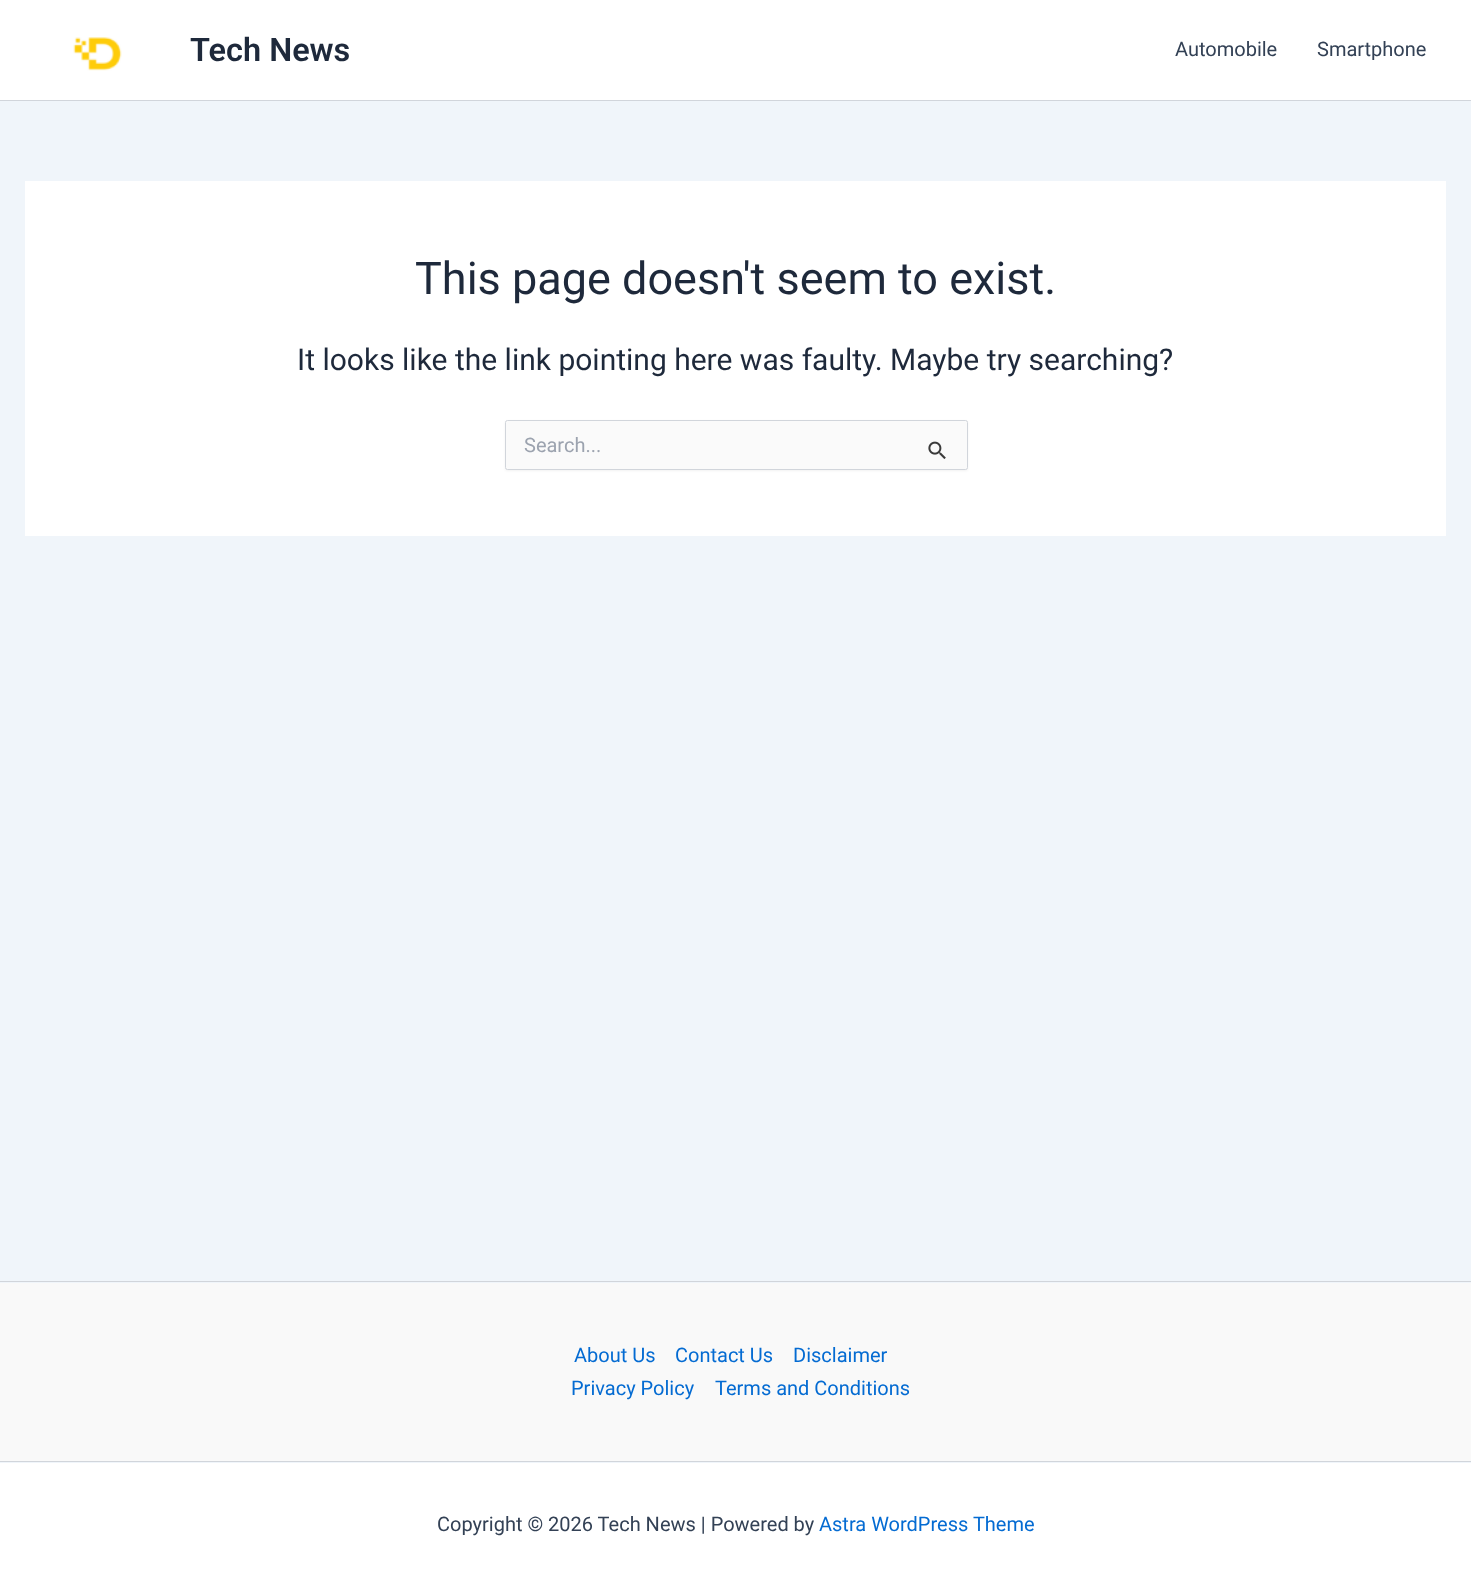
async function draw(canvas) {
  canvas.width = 1471;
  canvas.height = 1587;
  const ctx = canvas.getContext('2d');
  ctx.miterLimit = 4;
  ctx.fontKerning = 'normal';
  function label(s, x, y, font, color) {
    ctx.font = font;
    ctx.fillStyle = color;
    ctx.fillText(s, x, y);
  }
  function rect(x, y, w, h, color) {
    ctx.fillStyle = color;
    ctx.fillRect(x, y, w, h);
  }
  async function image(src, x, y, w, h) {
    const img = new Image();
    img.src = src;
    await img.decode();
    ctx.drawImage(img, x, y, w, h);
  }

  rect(0, 0, 1471, 1587, '#f0f5fa');
  rect(0, 0, 1471, 100, '#fff');
  rect(0, 100, 1471, 1, '#d1d5db');
  await image('assets/img1.png', 73, 37, 49, 34);
  label('Tech News', 190, 61, '600 32.5px Roboto', '#1e293b');
  label('Automobile', 1175, 56, '20px Roboto', '#334155');
  label('Smartphone', 1317, 56, '20px Roboto', '#334155');
  rect(25, 181, 1421, 355, '#fff');
  label('This page doesn\'t seem to exist.', 415, 294, '45px Roboto', '#1e293b');
  label('It looks like the link pointing here was faulty. Maybe try searching?', 297, 370, '30px Roboto', '#1e293b');
  ctx.fillStyle = '#0000000d';
  ctx.filter = 'blur(1px)';
  ctx.beginPath();
  ctx.roundRect(505, 421, 463, 50, 2.5);
  ctx.fill();
  ctx.filter = 'none';
  ctx.fillStyle = '#fafafa';
  ctx.beginPath();
  ctx.roundRect(505.5, 420.5, 462, 49, 2);
  ctx.fill();
  ctx.strokeStyle = '#d1d5db';
  ctx.stroke();
  label('Search...', 524, 452, '20px Roboto', '#9ca3af');
  await image('assets/img2.png', 928, 441, 18, 18);
  rect(0, 1283, 1471, 178, '#f9f9f9');
  rect(0, 1281, 1471, 1, '#d1d5db');
  label('About Us', 574, 1362, '20px Roboto', '#046bd2');
  label('Contact Us', 675, 1362, '20px Roboto', '#046bd2');
  label('Disclaimer', 793, 1362, '20px Roboto', '#046bd2');
  label('Privacy Policy', 571, 1395, '20px Roboto', '#046bd2');
  label('Terms and Conditions', 715, 1395, '20px Roboto', '#046bd2');
  rect(0, 1463, 1471, 124, '#fff');
  rect(0, 1461, 1471, 1, '#d1d5db');
  label('Copyright © 2026 Tech News | Powered by', 437, 1531, '20px Roboto', '#334155');
  label('Astra WordPress Theme', 819, 1531, '20px Roboto', '#046bd2');
}

draw(document.querySelector('canvas'));
